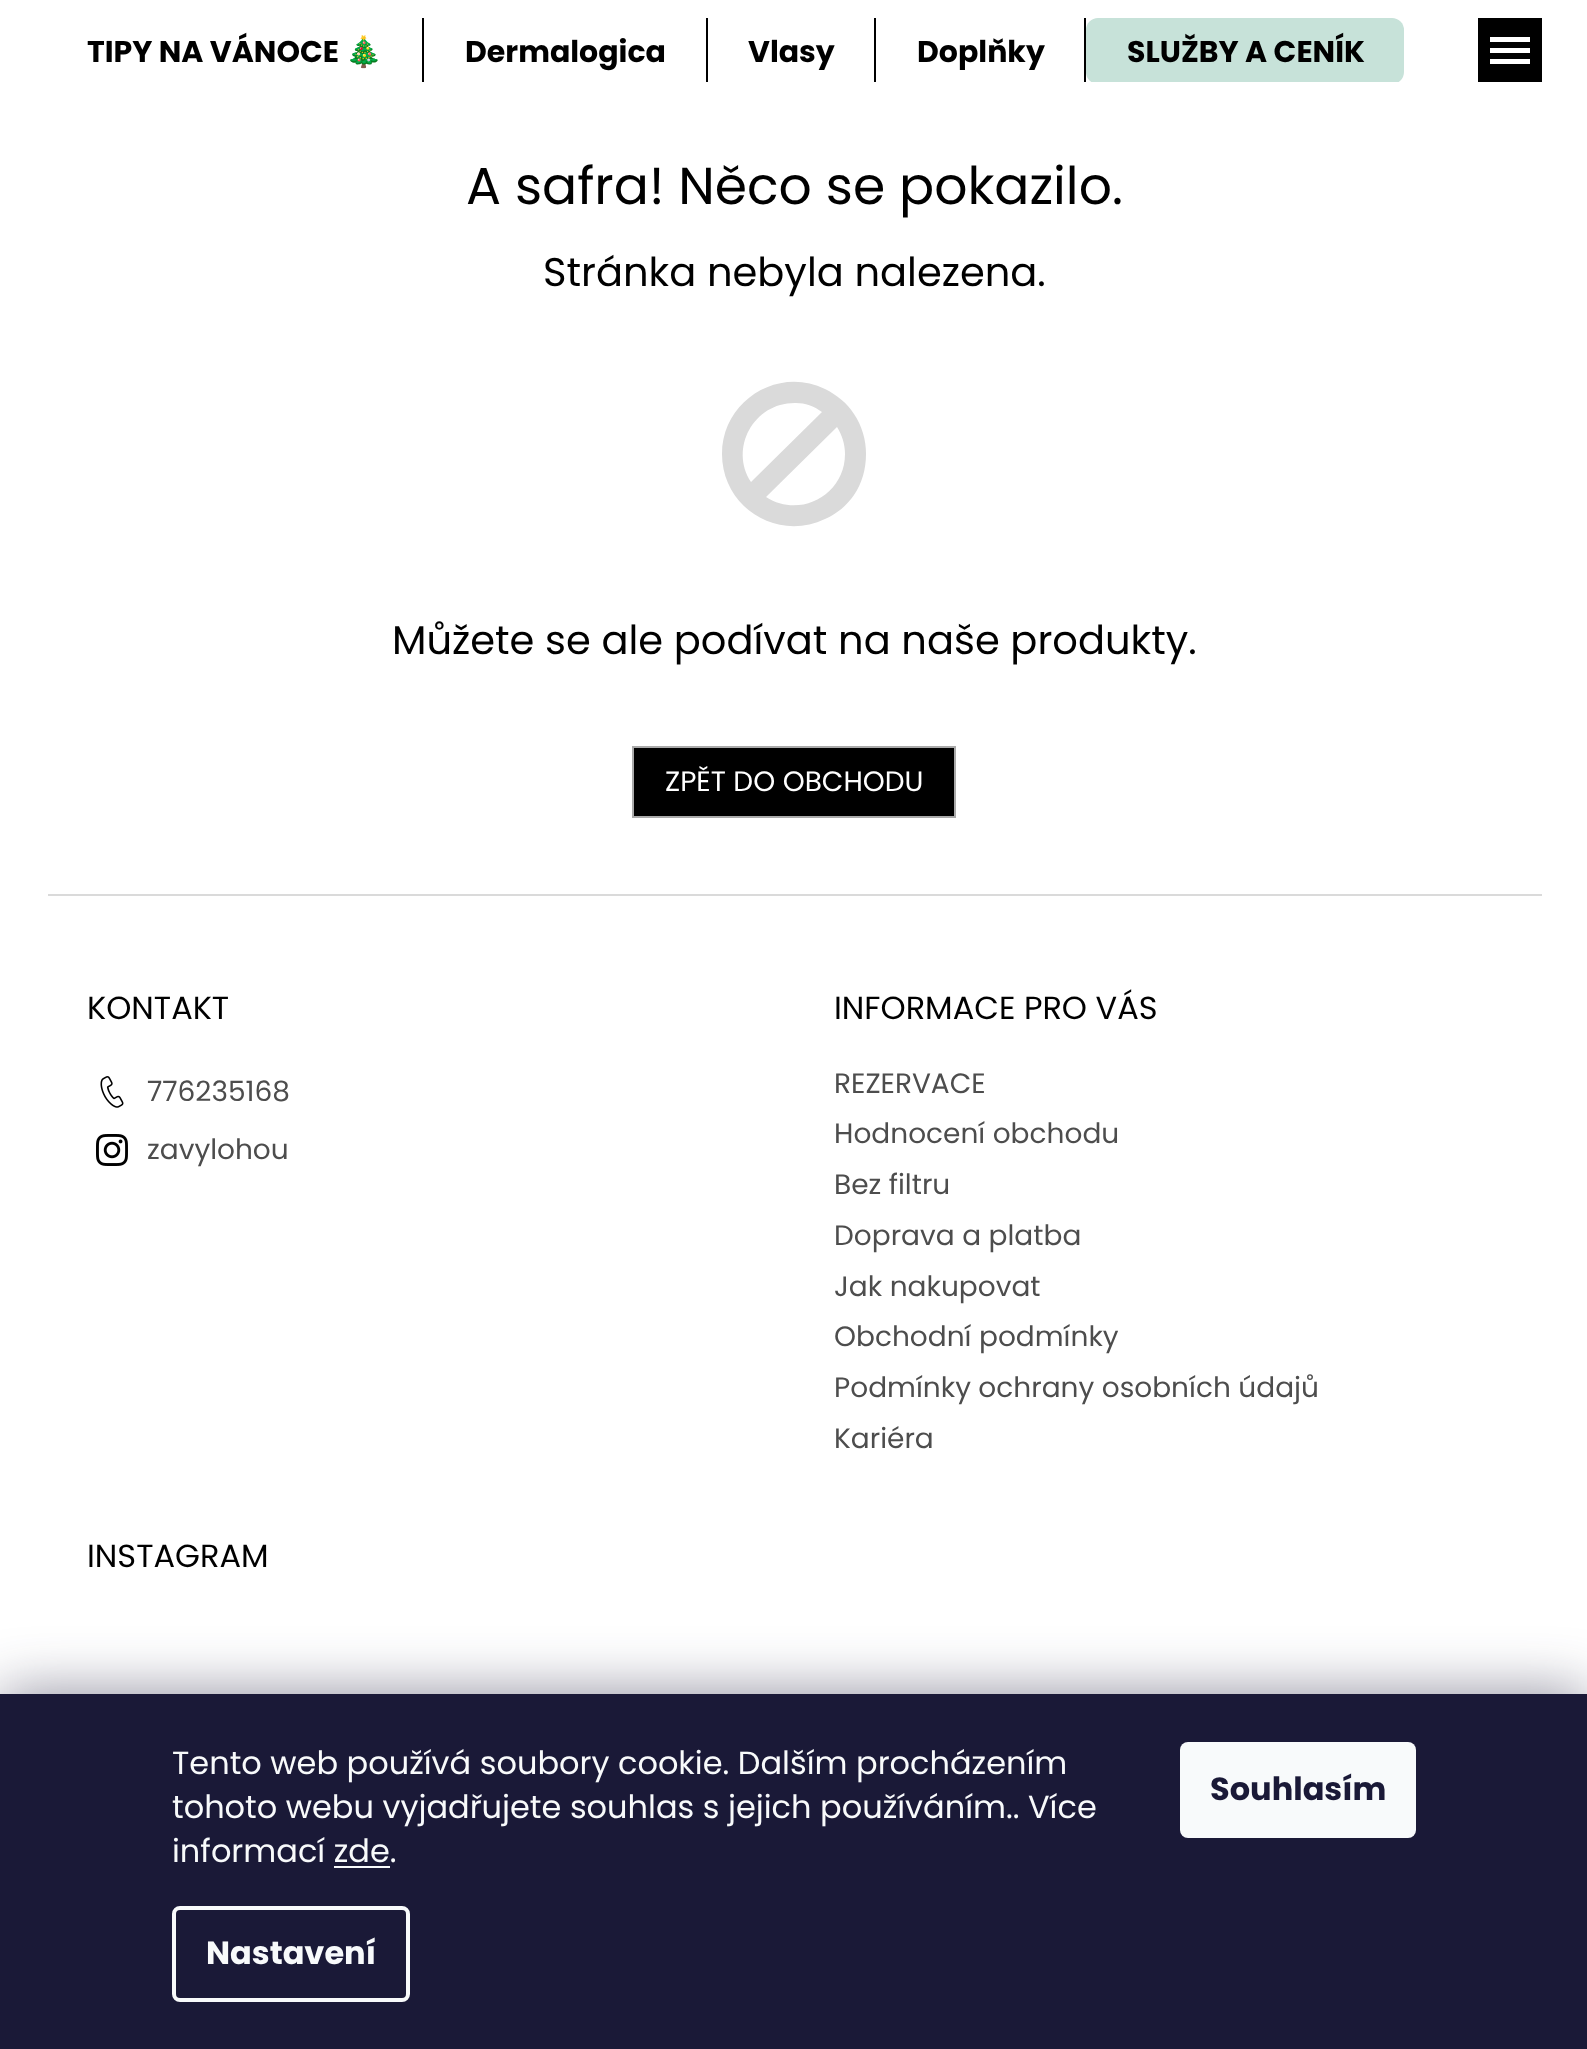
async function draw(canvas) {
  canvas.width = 1587;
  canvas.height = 2049;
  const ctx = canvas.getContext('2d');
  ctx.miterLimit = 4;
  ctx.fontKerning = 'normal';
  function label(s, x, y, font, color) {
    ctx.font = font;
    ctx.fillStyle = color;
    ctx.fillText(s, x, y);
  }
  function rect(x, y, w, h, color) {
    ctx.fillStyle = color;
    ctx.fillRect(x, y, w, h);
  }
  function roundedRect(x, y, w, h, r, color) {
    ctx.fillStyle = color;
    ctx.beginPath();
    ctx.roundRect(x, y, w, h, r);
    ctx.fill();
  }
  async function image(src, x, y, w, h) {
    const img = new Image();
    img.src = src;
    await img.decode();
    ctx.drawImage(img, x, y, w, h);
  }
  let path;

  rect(0, 0, 1587, 2049, '#fff');
  label('TIPY NA VÁNOCE', 87, 62, 'bold 30px Poppins', '#000');
  label('🎄', 345, 62, 'bold 30px Noto Color Emoji', '#000');
  rect(422, 18, 2, 64, '#000');
  label('Dermalogica', 465, 62, 'bold 30px Poppins', '#000');
  rect(706, 18, 2, 64, '#000');
  label('Vlasy', 748, 62, 'bold 30px Poppins', '#000');
  rect(874, 18, 2, 64, '#000');
  label('Doplňky', 917, 62, 'bold 30px Poppins', '#000');
  rect(1084, 18, 2, 64, '#000');
  ctx.save();
  ctx.beginPath();
  ctx.rect(48, 18, 1494, 64);
  ctx.clip();
  roundedRect(1086, 18, 318, 66, 12, '#c7e2d9');
  ctx.restore();
  label('SLUŽBY A CENÍK', 1127, 62, 'bold 30px Poppins', '#000');
  rect(1478, 18, 64, 64, '#000');
  ctx.fillStyle = '#fff';
  path = new Path2D('M1490 64H1530V59H1490ZM1490 53H1530V48H1490ZM1490 37V42H1530V37Z');
  ctx.fill(path);
  label('A safra! Něco se pokazilo.', 466, 204, '52px Poppins', '#000');
  label('Stránka nebyla nalezena.', 543, 286, '40px Poppins', '#000');
  ctx.fillStyle = '#dadada';
  path = new Path2D('M845 454C845 444 842 435 837 427L766 497C800 519 845 495 845 454ZM751 482L822 412C814 406 805 403 796 403C754 402 729 448 751 482ZM866 454C866 469 862 483 854 495C847 505 837 514 825 519C777 542 722 507 722 454C722 401 778 366 825 389C837 395 847 403 854 414C862 426 866 440 866 454Z');
  ctx.fill(path);
  label('Můžete se ale podívat na naše produkty.', 392, 654, '40px Poppins', '#000');
  ctx.beginPath();
  ctx.rect(633, 747, 322, 70);
  ctx.fill();
  ctx.strokeStyle = '#aaa';
  ctx.lineWidth = 2;
  ctx.stroke();
  label('ZPĚT DO OBCHODU', 665, 791, '28px Poppins', '#fff');
  rect(48, 894, 1494, 2, '#dadada');
  label('KONTAKT', 87, 1019, '32px Poppins', '#000');
  await image('assets/img1.png', 100, 1076, 24, 32);
  label('776235168', 147, 1101, '28px Poppins', '#4d4d4d');
  await image('assets/img2.png', 96, 1134, 32, 32);
  label('zavylohou', 147, 1159, '28px Poppins', '#4d4d4d');
  label('INFORMACE PRO VÁS', 834, 1019, '32px Poppins', '#000');
  label('REZERVACE', 834, 1093, '28px Poppins', '#4d4d4d');
  label('Hodnocení obchodu', 834, 1143, '28px Poppins', '#4d4d4d');
  label('Bez filtru', 834, 1194, '28px Poppins', '#4d4d4d');
  label('Doprava a platba', 834, 1245, '28px Poppins', '#4d4d4d');
  label('Jak nakupovat', 834, 1296, '28px Poppins', '#4d4d4d');
  label('Obchodní podmínky', 834, 1346, '28px Poppins', '#4d4d4d');
  label('Podmínky ochrany osobních údajů', 834, 1397, '28px Poppins', '#4d4d4d');
  label('Kariéra', 834, 1448, '28px Poppins', '#4d4d4d');
  label('INSTAGRAM', 87, 1567, '32px Poppins', '#000');
  ctx.fillStyle = '#1b193980';
  ctx.filter = 'blur(30px)';
  ctx.beginPath();
  ctx.rect(0, 1694, 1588, 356);
  ctx.fill();
  ctx.filter = 'none';
  rect(0, 1694, 1587, 355, '#1a1937');
  label('Tento web používá soubory cookie. Dalším procházením', 172, 1774, '32px Poppins', '#f8fafb');
  label('tohoto webu vyjadřujete souhlas s jejich používáním.. Více', 172, 1818, '32px Poppins', '#f8fafb');
  label('informací zde.', 172, 1862, '32px Poppins', '#f8fafb');
  rect(334, 1866, 56, 2, '#f8fafb');
  ctx.beginPath();
  ctx.roundRect(174, 1908, 234, 92, 6);
  ctx.strokeStyle = '#f8fafb';
  ctx.lineWidth = 4;
  ctx.stroke();
  label('Nastavení', 206, 1964, 'bold 32px Poppins', '#f8fafb');
  roundedRect(1180, 1742, 236, 96, 8, '#f8fafb');
  label('Souhlasím', 1210, 1800, 'bold 32px Poppins', '#1a1937');
}

draw(document.querySelector('canvas'));
